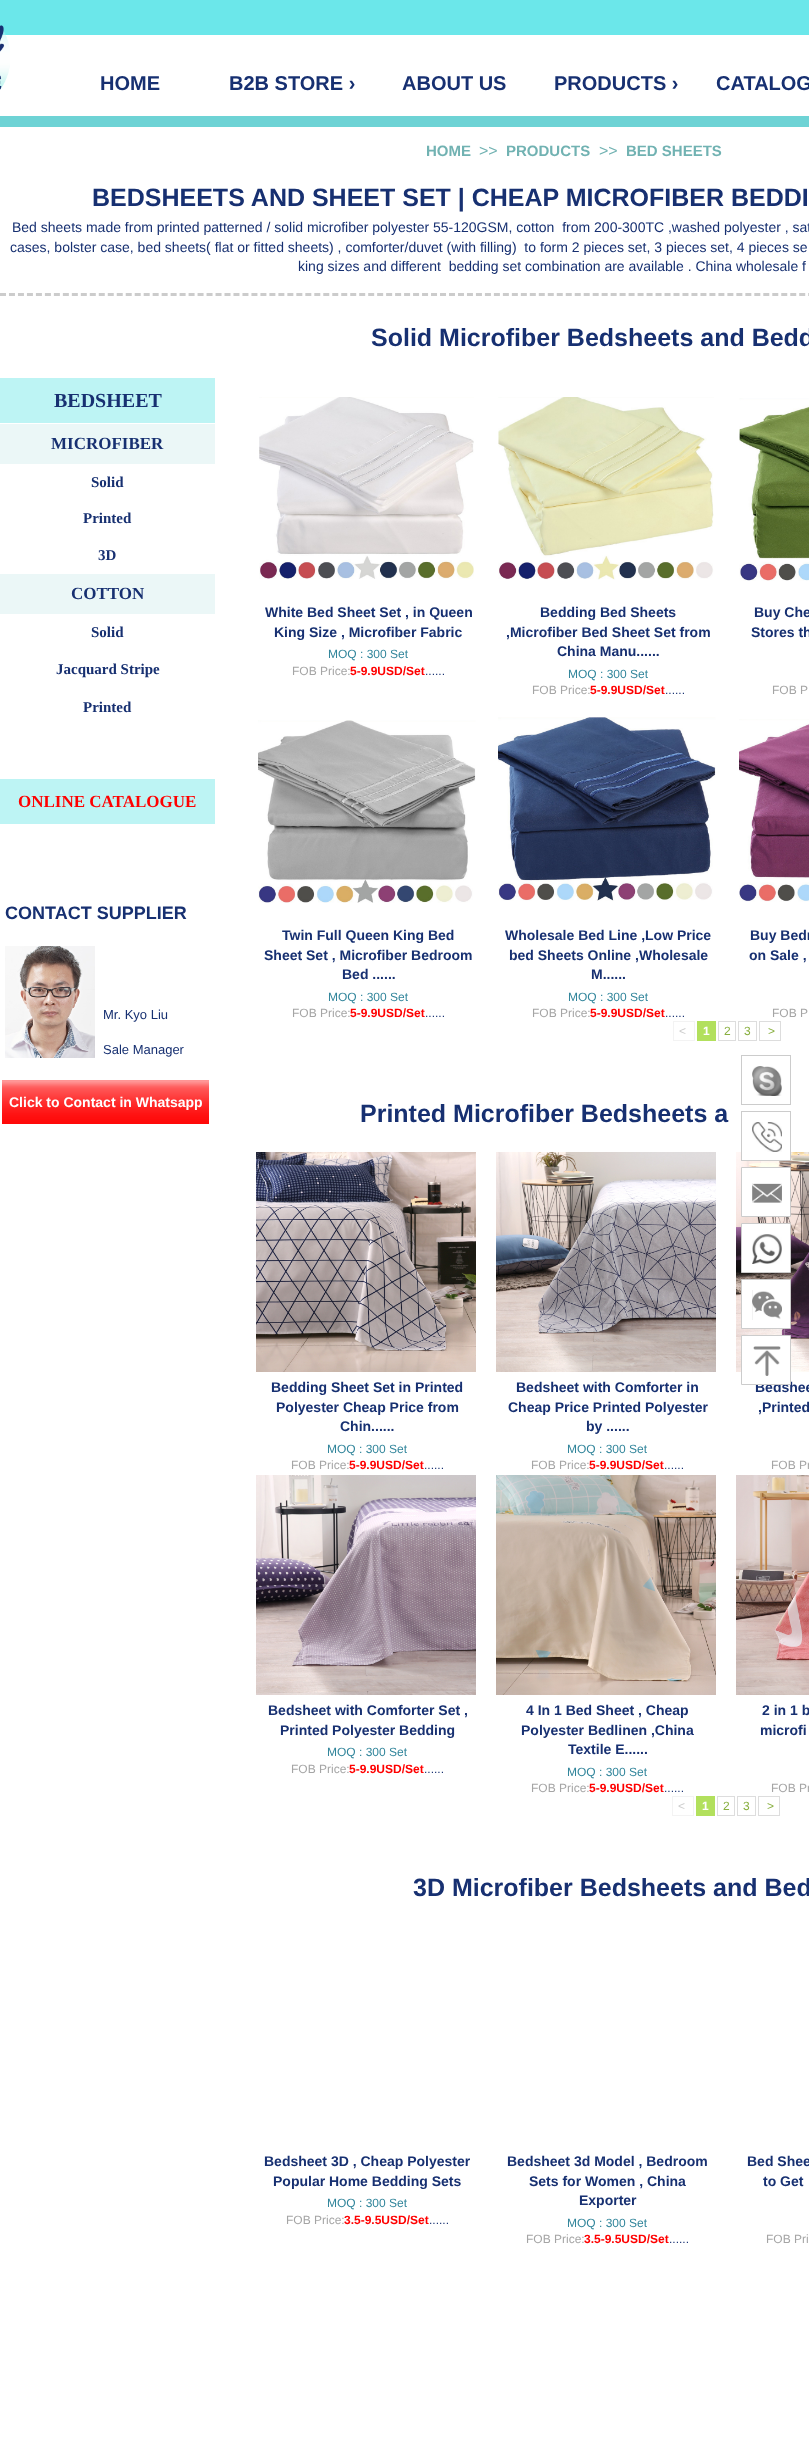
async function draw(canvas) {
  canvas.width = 809;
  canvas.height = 2446;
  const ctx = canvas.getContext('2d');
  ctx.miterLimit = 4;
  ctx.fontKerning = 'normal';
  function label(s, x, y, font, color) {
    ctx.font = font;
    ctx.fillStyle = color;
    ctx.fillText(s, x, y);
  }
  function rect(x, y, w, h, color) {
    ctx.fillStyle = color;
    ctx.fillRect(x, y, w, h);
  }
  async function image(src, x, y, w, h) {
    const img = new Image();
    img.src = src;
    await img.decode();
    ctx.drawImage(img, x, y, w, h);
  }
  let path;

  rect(0, 0, 809, 2446, '#fff');
  rect(0, 0, 809, 35, '#6be7ea');
  await image('assets/img1.png', 0, 25, 10, 65);
  label('HOME', 100, 90, 'bold 20px Liberation Sans', '#173071');
  label('B2B STORE ›', 229, 90, 'bold 20px Liberation Sans', '#173071');
  label('ABOUT US', 402, 90, 'bold 20px Liberation Sans', '#173071');
  label('PRODUCTS ›', 554, 90, 'bold 20px Liberation Sans', '#173071');
  label('CATALOG', 716, 90, 'bold 20px Liberation Sans', '#173071');
  rect(0, 116, 809, 11, '#6ed3d5');
  label('HOME', 426, 156, 'bold 15px Liberation Sans', '#71b2b2');
  label('>>', 479, 156, '16px Liberation Sans', '#71b2b2');
  label('PRODUCTS', 506, 156, 'bold 15px Liberation Sans', '#71b2b2');
  label('>>', 599, 156, '16px Liberation Sans', '#71b2b2');
  label('BED SHEETS', 626, 156, 'bold 15px Liberation Sans', '#71b2b2');
  label('BEDSHEETS AND SHEET SET | CHEAP MICROFIBER BEDDI', 92, 206, 'bold 25px Liberation Sans', '#173071');
  label('Bed sheets made from printed patterned / solid microfiber polyester 55-120GSM, cotton  from 200-300TC ,washed polyester , sat', 12, 232, '14px Liberation Sans', '#173071');
  label('cases, bolster case, bed sheets( flat or fitted sheets) , comforter/duvet (with filling)  to form 2 pieces set, 3 pieces set, 4 pieces se', 10, 252, '14px Liberation Sans', '#173071');
  label('king sizes and different  bedding set combination are available . China wholesale f', 298, 271, '14px Liberation Sans', '#173071');
  rect(0, 378, 215, 45, '#bdf4f4');
  label('BEDSHEET', 54, 407, 'bold 20px Liberation Serif', '#173071');
  rect(0, 424, 215, 40, '#ebf7f7');
  label('MICROFIBER', 51, 449, 'bold 17px Liberation Serif', '#173071');
  label('Solid', 91, 487, 'bold 15px Liberation Serif', '#173071');
  label('Printed', 83, 523, 'bold 15px Liberation Serif', '#173071');
  label('3D', 98, 560, 'bold 15px Liberation Serif', '#173071');
  rect(0, 574, 215, 40, '#ebf7f7');
  label('COTTON', 71, 599, 'bold 17px Liberation Serif', '#173071');
  label('Solid', 91, 637, 'bold 15px Liberation Serif', '#173071');
  label('Jacquard Stripe', 56, 674, 'bold 15px Liberation Serif', '#173071');
  label('Printed', 83, 712, 'bold 15px Liberation Serif', '#173071');
  rect(0, 779, 215, 45, '#bdf4f4');
  label('ONLINE CATALOGUE', 18, 807, 'bold 17px Liberation Serif', '#f00');
  label('Solid Microfiber Bedsheets and Bedd', 371, 346, 'bold 25px Liberation Sans', '#173071');
  await image('assets/img2.png', 259, 397, 215, 182);
  label('White Bed Sheet Set , in Queen', 265, 617, 'bold 14px Liberation Sans', '#173071');
  label('King Size , Microfiber Fabric', 274, 637, 'bold 14px Liberation Sans', '#173071');
  label('MOQ : 300 Set', 328, 658, '12px Liberation Sans', '#31859b');
  label('FOB Price:', 292, 675, '12px Liberation Sans', '#a5a5a5');
  label('5-9.9USD/Set', 350, 675, 'bold 12px Liberation Sans', '#f00');
  label('......', 425, 675, '12px Liberation Sans', '#173071');
  await image('assets/img3.png', 498, 397, 216, 183);
  label('Bedding Bed Sheets', 540, 617, 'bold 14px Liberation Sans', '#173071');
  label(',Microfiber Bed Sheet Set from', 506, 637, 'bold 14px Liberation Sans', '#173071');
  label('China Manu......', 557, 656, 'bold 14px Liberation Sans', '#173071');
  label('MOQ : 300 Set', 568, 678, '12px Liberation Sans', '#31859b');
  label('FOB Price:', 532, 694, '12px Liberation Sans', '#a5a5a5');
  label('5-9.9USD/Set', 590, 694, 'bold 12px Liberation Sans', '#f00');
  label('......', 665, 694, '12px Liberation Sans', '#173071');
  await image('assets/img4.png', 739, 398, 70, 183);
  label('Buy Che', 754, 617, 'bold 14px Liberation Sans', '#173071');
  label('Stores th', 751, 637, 'bold 14px Liberation Sans', '#173071');
  label('FOB P', 772, 694, '12px Liberation Sans', '#a5a5a5');
  await image('assets/img5.png', 258, 720, 218, 183);
  label('Twin Full Queen King Bed', 282, 940, 'bold 14px Liberation Sans', '#173071');
  label('Sheet Set , Microfiber Bedroom', 264, 960, 'bold 14px Liberation Sans', '#173071');
  label('Bed ......', 342, 979, 'bold 14px Liberation Sans', '#173071');
  label('MOQ : 300 Set', 328, 1001, '12px Liberation Sans', '#31859b');
  label('FOB Price:', 292, 1017, '12px Liberation Sans', '#a5a5a5');
  label('5-9.9USD/Set', 350, 1017, 'bold 12px Liberation Sans', '#f00');
  label('......', 425, 1017, '12px Liberation Sans', '#173071');
  await image('assets/img6.png', 498, 717, 218, 184);
  label('Wholesale Bed Line ,Low Price', 505, 940, 'bold 14px Liberation Sans', '#173071');
  label('bed Sheets Online ,Wholesale', 509, 960, 'bold 14px Liberation Sans', '#173071');
  label('M......', 591, 979, 'bold 14px Liberation Sans', '#173071');
  label('MOQ : 300 Set', 568, 1001, '12px Liberation Sans', '#31859b');
  label('FOB Price:', 532, 1017, '12px Liberation Sans', '#a5a5a5');
  label('5-9.9USD/Set', 590, 1017, 'bold 12px Liberation Sans', '#f00');
  label('......', 665, 1017, '12px Liberation Sans', '#173071');
  await image('assets/img7.png', 739, 719, 70, 183);
  label('Buy Bedr', 750, 940, 'bold 14px Liberation Sans', '#173071');
  label('on Sale ,', 749, 960, 'bold 14px Liberation Sans', '#173071');
  label('FOB P', 772, 1017, '12px Liberation Sans', '#a5a5a5');
  ctx.strokeStyle = '#f3f3f3';
  ctx.strokeRect(673.5, 1021.5, 21, 19);
  label('<', 679, 1035, '12px Liberation Sans', '#ccc');
  rect(697, 1021, 19, 20, '#b2e05d');
  label('1', 703, 1035, 'bold 12px Liberation Sans', '#fff');
  ctx.strokeStyle = '#ddd';
  ctx.strokeRect(718.5, 1021.5, 17, 19);
  label('2', 724, 1035, '12px Liberation Sans', '#88af3f');
  ctx.strokeRect(738.5, 1021.5, 18, 19);
  label('3', 744, 1035, '12px Liberation Sans', '#88af3f');
  ctx.strokeRect(759.5, 1021.5, 21, 19);
  label('>', 768, 1035, '12px Liberation Sans', '#88af3f');
  label('Printed Microfiber Bedsheets a', 360, 1122, 'bold 25px Liberation Sans', '#173071');
  await image('assets/img8.png', 256, 1152, 220, 220);
  label('Bedding Sheet Set in Printed', 271, 1392, 'bold 14px Liberation Sans', '#173071');
  label('Polyester Cheap Price from', 276, 1412, 'bold 14px Liberation Sans', '#173071');
  label('Chin......', 340, 1431, 'bold 14px Liberation Sans', '#173071');
  label('MOQ : 300 Set', 327, 1453, '12px Liberation Sans', '#31859b');
  label('FOB Price:', 291, 1469, '12px Liberation Sans', '#a5a5a5');
  label('5-9.9USD/Set', 349, 1469, 'bold 12px Liberation Sans', '#f00');
  label('......', 424, 1469, '12px Liberation Sans', '#173071');
  await image('assets/img9.png', 496, 1152, 220, 220);
  label('Bedsheet with Comforter in', 516, 1392, 'bold 14px Liberation Sans', '#173071');
  label('Cheap Price Printed Polyester', 508, 1412, 'bold 14px Liberation Sans', '#173071');
  label('by ......', 586, 1431, 'bold 14px Liberation Sans', '#173071');
  label('MOQ : 300 Set', 567, 1453, '12px Liberation Sans', '#31859b');
  label('FOB Price:', 531, 1469, '12px Liberation Sans', '#a5a5a5');
  label('5-9.9USD/Set', 589, 1469, 'bold 12px Liberation Sans', '#f00');
  label('......', 664, 1469, '12px Liberation Sans', '#173071');
  await image('assets/img10.png', 736, 1152, 73, 220);
  label('Bedshee', 755, 1392, 'bold 14px Liberation Sans', '#173071');
  label(',Printed', 758, 1412, 'bold 14px Liberation Sans', '#173071');
  label('FOB Pr', 771, 1469, '12px Liberation Sans', '#a5a5a5');
  await image('assets/img11.png', 256, 1475, 220, 220);
  label('Bedsheet with Comforter Set ,', 268, 1715, 'bold 14px Liberation Sans', '#173071');
  label('Printed Polyester Bedding', 280, 1735, 'bold 14px Liberation Sans', '#173071');
  label('MOQ : 300 Set', 327, 1756, '12px Liberation Sans', '#31859b');
  label('FOB Price:', 291, 1773, '12px Liberation Sans', '#a5a5a5');
  label('5-9.9USD/Set', 349, 1773, 'bold 12px Liberation Sans', '#f00');
  label('......', 424, 1773, '12px Liberation Sans', '#173071');
  await image('assets/img12.png', 496, 1475, 220, 220);
  label('4 In 1 Bed Sheet , Cheap', 526, 1715, 'bold 14px Liberation Sans', '#173071');
  label('Polyester Bedlinen ,China', 521, 1735, 'bold 14px Liberation Sans', '#173071');
  label('Textile E......', 568, 1754, 'bold 14px Liberation Sans', '#173071');
  label('MOQ : 300 Set', 567, 1776, '12px Liberation Sans', '#31859b');
  label('FOB Price:', 531, 1792, '12px Liberation Sans', '#a5a5a5');
  label('5-9.9USD/Set', 589, 1792, 'bold 12px Liberation Sans', '#f00');
  label('......', 664, 1792, '12px Liberation Sans', '#173071');
  await image('assets/img13.png', 736, 1475, 73, 220);
  label('2 in 1 b', 762, 1715, 'bold 14px Liberation Sans', '#173071');
  label('microfi', 760, 1735, 'bold 14px Liberation Sans', '#173071');
  label('FOB Pr', 771, 1792, '12px Liberation Sans', '#a5a5a5');
  ctx.strokeStyle = '#f3f3f3';
  ctx.strokeRect(672.5, 1796.5, 21, 19);
  label('<', 678, 1810, '12px Liberation Sans', '#ccc');
  rect(696, 1796, 19, 20, '#b2e05d');
  label('1', 702, 1810, 'bold 12px Liberation Sans', '#fff');
  ctx.strokeStyle = '#ddd';
  ctx.strokeRect(717.5, 1796.5, 17, 19);
  label('2', 723, 1810, '12px Liberation Sans', '#88af3f');
  ctx.strokeRect(737.5, 1796.5, 18, 19);
  label('3', 743, 1810, '12px Liberation Sans', '#88af3f');
  ctx.strokeRect(758.5, 1796.5, 21, 19);
  label('>', 767, 1810, '12px Liberation Sans', '#88af3f');
  label('3D Microfiber Bedsheets and Bed', 413, 1896, 'bold 25px Liberation Sans', '#173071');
  label('Bedsheet 3D , Cheap Polyester', 264, 2166, 'bold 14px Liberation Sans', '#173071');
  label('Popular Home Bedding Sets', 273, 2186, 'bold 14px Liberation Sans', '#173071');
  label('MOQ : 300 Set', 327, 2207, '12px Liberation Sans', '#31859b');
  label('FOB Price:', 286, 2224, '12px Liberation Sans', '#a5a5a5');
  label('3.5-9.5USD/Set', 344, 2224, 'bold 12px Liberation Sans', '#f00');
  label('......', 429, 2224, '12px Liberation Sans', '#173071');
  label('Bedsheet 3d Model , Bedroom', 507, 2166, 'bold 14px Liberation Sans', '#173071');
  label('Sets for Women , China', 529, 2186, 'bold 14px Liberation Sans', '#173071');
  label('Exporter', 579, 2205, 'bold 14px Liberation Sans', '#173071');
  label('MOQ : 300 Set', 567, 2227, '12px Liberation Sans', '#31859b');
  label('FOB Price:', 526, 2243, '12px Liberation Sans', '#a5a5a5');
  label('3.5-9.5USD/Set', 584, 2243, 'bold 12px Liberation Sans', '#f00');
  label('......', 669, 2243, '12px Liberation Sans', '#173071');
  label('Bed Shee', 747, 2166, 'bold 14px Liberation Sans', '#173071');
  label('to Get', 763, 2186, 'bold 14px Liberation Sans', '#173071');
  label('FOB Pri', 766, 2243, '12px Liberation Sans', '#a5a5a5');
  label('CONTACT SUPPLIER', 5, 919, 'bold 18px Liberation Sans', '#173071');
  await image('assets/img14.png', 5, 946, 90, 112);
  label('Mr. Kyo Liu', 103, 1019, '13px Liberation Sans', '#173071');
  label('Sale Manager', 103, 1054, '13px Liberation Sans', '#173071');
  rect(2, 1080, 207, 44, '#f00');
  await image('assets/img15.png', 2, 1080, 207, 44);
  label('Click to Contact in Whatsapp', 9, 1107, 'bold 14px Liberation Sans', '#fff');
  path = new Path2D('M0 294.5H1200');
  ctx.strokeStyle = '#ccc';
  ctx.lineWidth = 3;
  ctx.setLineDash([6, 2.98]);
  ctx.stroke(path);
  ctx.lineWidth = 1;
  ctx.setLineDash([]);
  ctx.strokeRect(741.5, 1055.5, 49, 49);
  await image('assets/img16.png', 752, 1066, 30, 30);
  rect(742, 1152, 48, 8, '#fff');
  ctx.strokeRect(741.5, 1111.5, 49, 49);
  await image('assets/img17.png', 752, 1122, 30, 30);
  ctx.beginPath();
  ctx.rect(741.5, 1167.5, 49, 49);
  ctx.fill();
  ctx.stroke();
  await image('assets/img18.png', 752, 1183, 30, 20);
  ctx.beginPath();
  ctx.rect(741.5, 1223.5, 49, 49);
  ctx.fill();
  ctx.stroke();
  await image('assets/img19.png', 752, 1234, 30, 30);
  ctx.beginPath();
  ctx.rect(741.5, 1279.5, 49, 49);
  ctx.fill();
  ctx.stroke();
  await image('assets/img20.png', 752, 1290, 30, 30);
  ctx.beginPath();
  ctx.rect(741.5, 1335.5, 49, 49);
  ctx.fill();
  ctx.stroke();
  await image('assets/img21.png', 753, 1346, 28, 30);
}

draw(document.querySelector('canvas'));
